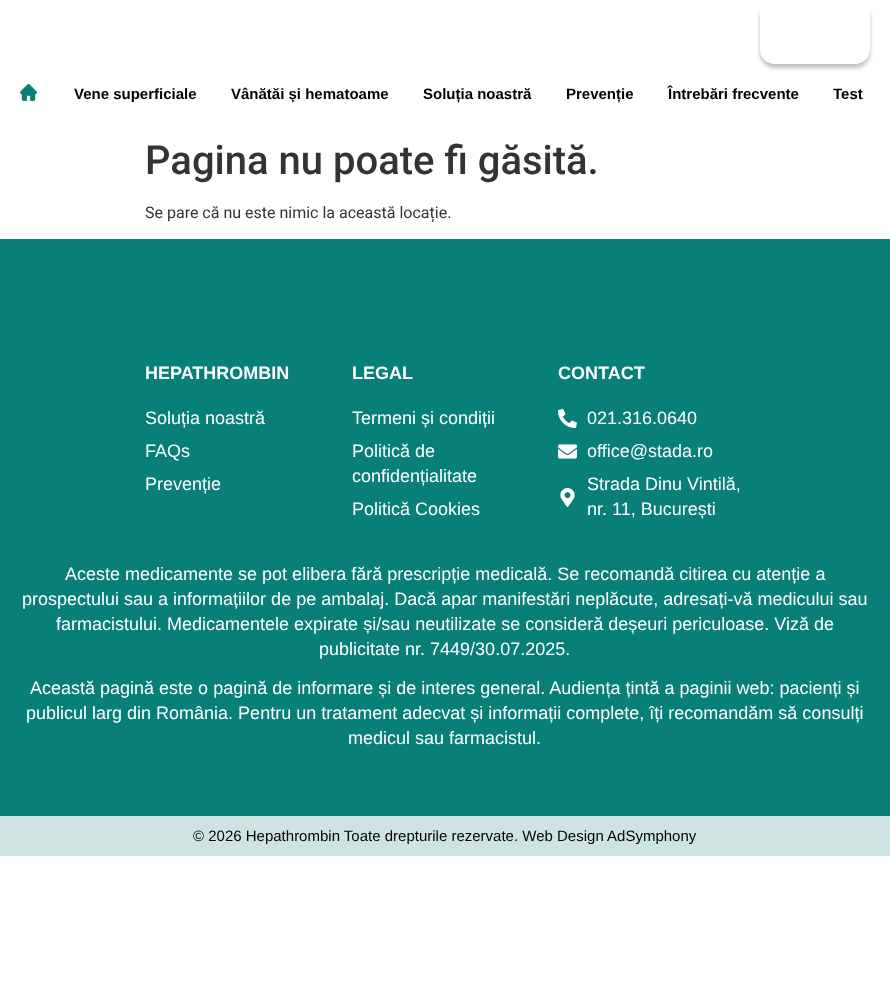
async function draw(canvas) {
  canvas.width = 890;
  canvas.height = 998;
  const ctx = canvas.getContext('2d');
  ctx.miterLimit = 4;
  ctx.fontKerning = 'normal';
  function label(s, x, y, font, color) {
    ctx.font = font;
    ctx.fillStyle = color;
    ctx.fillText(s, x, y);
  }
  function rect(x, y, w, h, color) {
    ctx.fillStyle = color;
    ctx.fillRect(x, y, w, h);
  }
  async function image(src, x, y, w, h) {
    const img = new Image();
    img.src = src;
    await img.decode();
    ctx.drawImage(img, x, y, w, h);
  }
  let path;

  rect(0, 0, 890, 998, '#fff');
  ctx.save();
  path = new Path2D('M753 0H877V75H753ZM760 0H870V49C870 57.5 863.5 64 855 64H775C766.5 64 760 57.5 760 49Z');
  ctx.clip(path, 'evenodd');
  ctx.fillStyle = '#00000040';
  ctx.filter = 'blur(2px)';
  ctx.beginPath();
  ctx.roundRect(760, 4, 110, 64, 15);
  ctx.fill();
  ctx.filter = 'none';
  ctx.restore();
  await image('assets/img1.png', 20, 84, 17, 17);
  label('Vene superficiale', 74, 99, 'bold 15px Liberation Sans', '#000');
  label('Vânătăi și hematoame', 231, 99, 'bold 15px Liberation Sans', '#000');
  label('Soluția noastră', 423, 99, 'bold 15px Liberation Sans', '#000');
  label('Prevenție', 566, 99, 'bold 15px Liberation Sans', '#000');
  label('Întrebări frecvente', 668, 99, 'bold 15px Liberation Sans', '#000');
  label('Test', 833, 99, 'bold 15px Liberation Sans', '#000');
  label('Pagina nu poate fi găsită.', 145, 174, '500 40px Roboto', '#333');
  label('Se pare că nu este nimic la această locație.', 145, 218, '16px Roboto', '#333');
  rect(0, 239, 890, 577, '#087f77');
  label('HEPATHROMBIN', 145, 379, 'bold 18px Liberation Sans', '#fff');
  label('Soluția noastră', 145, 424, '18px Liberation Sans', '#fff');
  label('FAQs', 145, 457, '18px Liberation Sans', '#fff');
  label('Prevenție', 145, 490, '18px Liberation Sans', '#fff');
  label('LEGAL', 352, 379, 'bold 18px Liberation Sans', '#fff');
  label('Termeni și condiții', 352, 424, '18px Liberation Sans', '#fff');
  label('Politică de', 352, 457, '18px Liberation Sans', '#fff');
  label('confidențialitate', 352, 482, '18px Liberation Sans', '#fff');
  label('Politică Cookies', 352, 515, '18px Liberation Sans', '#fff');
  label('CONTACT', 558, 379, 'bold 18px Liberation Sans', '#fff');
  await image('assets/img2.png', 558, 409, 19, 19);
  label('021.316.0640', 587, 424, '18px Liberation Sans', '#fff');
  await image('assets/img3.png', 558, 444, 19, 15);
  label('office@stada.ro', 587, 457, '18px Liberation Sans', '#fff');
  await image('assets/img4.png', 560, 488, 15, 19);
  label('Strada Dinu Vintilă,', 587, 490, '18px Liberation Sans', '#fff');
  label('nr. 11, București', 587, 515, '18px Liberation Sans', '#fff');
  label('Aceste medicamente se pot elibera fără prescripție medicală. Se recomandă citirea cu atenție a', 65, 580, '18px Liberation Sans', '#fff');
  label('prospectului sau a informațiilor de pe ambalaj. Dacă apar manifestări neplăcute, adresați-vă medicului sau', 22, 605, '18px Liberation Sans', '#fff');
  label('farmacistului. Medicamentele expirate și/sau neutilizate se consideră deșeuri periculoase. Viză de', 56, 630, '18px Liberation Sans', '#fff');
  label('publicitate nr. 7449/30.07.2025.', 319, 655, '18px Liberation Sans', '#fff');
  label('Această pagină este o pagină de informare și de interes general. Audiența țintă a paginii web: pacienți și', 30, 694, '18px Liberation Sans', '#fff');
  label('publicul larg din România. Pentru un tratament adecvat și informații complete, îți recomandăm să consulți', 26, 719, '18px Liberation Sans', '#fff');
  label('medicul sau farmacistul.', 348, 744, '18px Liberation Sans', '#fff');
  rect(0, 816, 890, 40, '#cee4e3');
  label('© 2026 Hepathrombin Toate drepturile rezervate. Web Design AdSymphony', 193, 841, '15px Liberation Sans', '#000');
}

draw(document.querySelector('canvas'));
